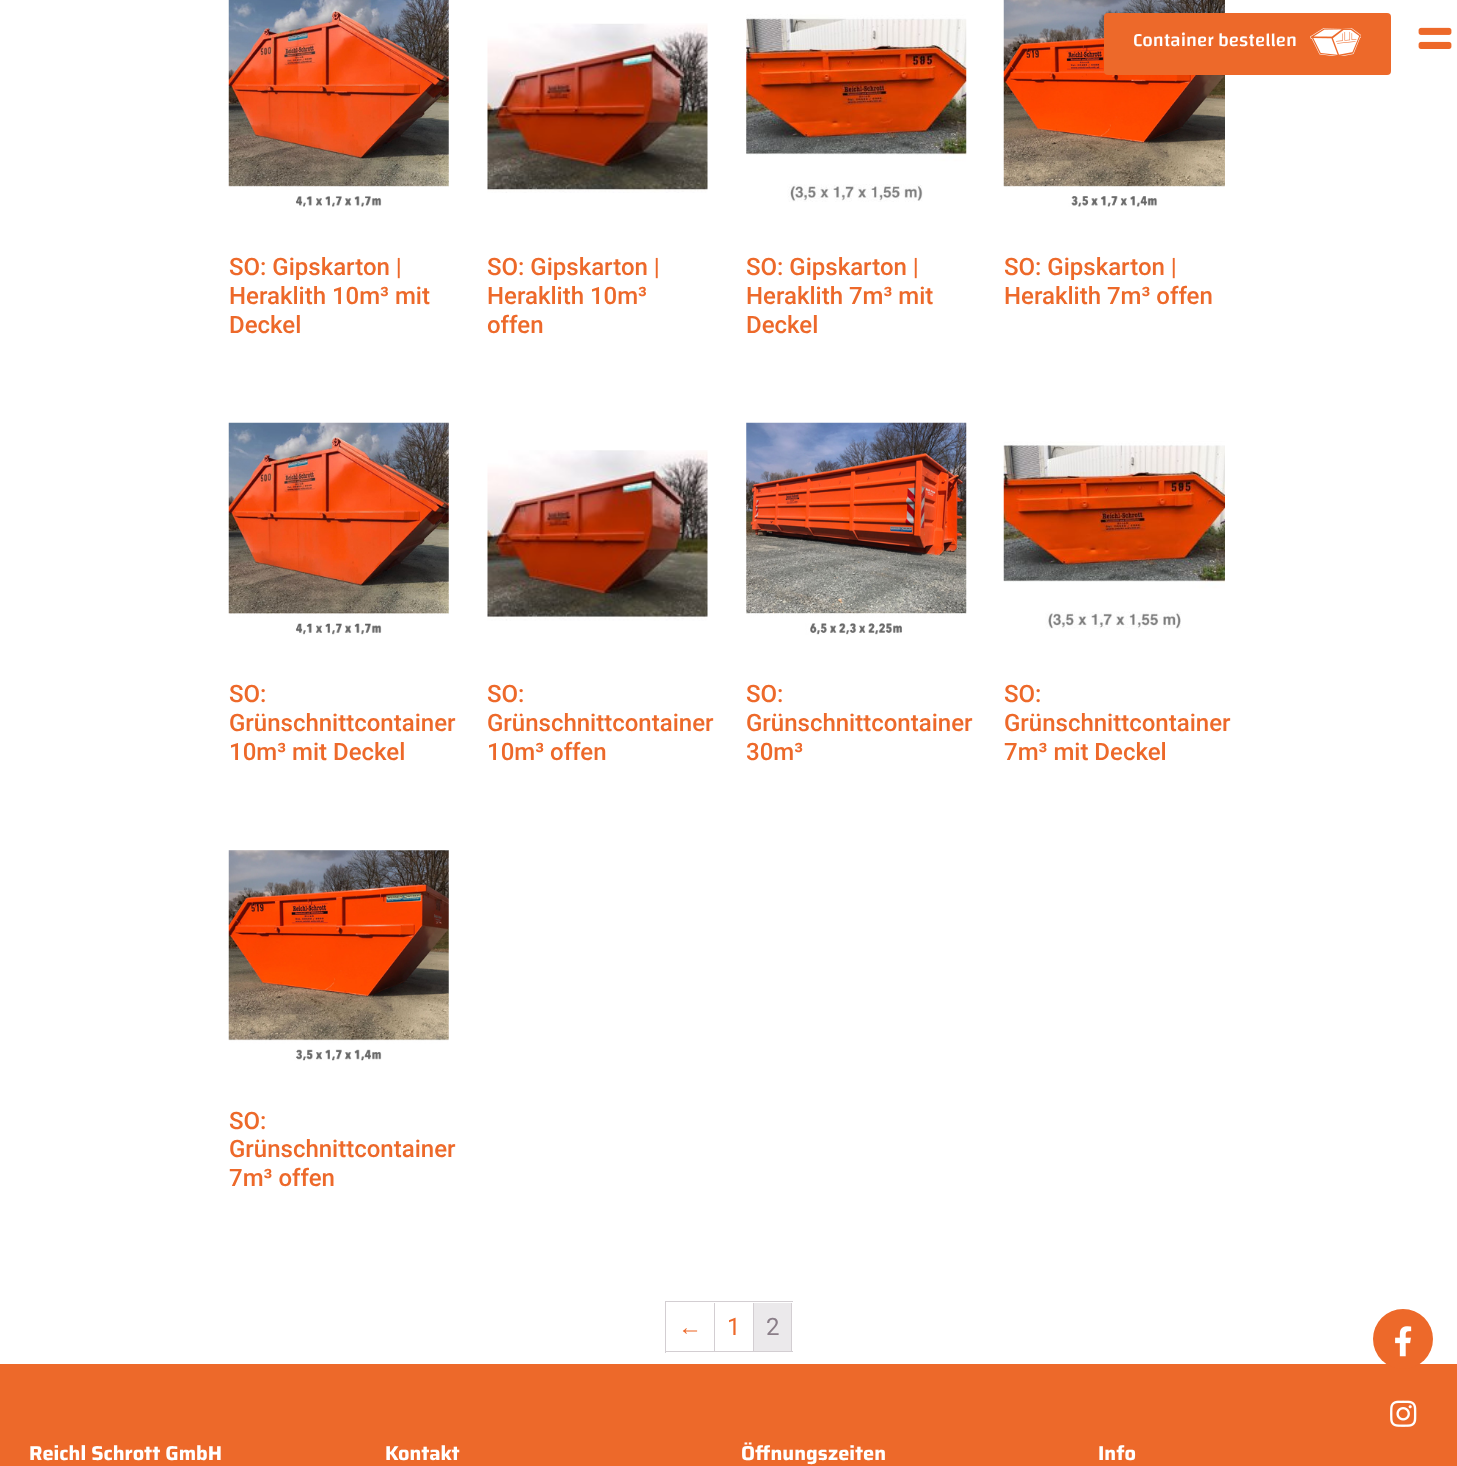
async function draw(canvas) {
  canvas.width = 1457;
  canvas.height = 1466;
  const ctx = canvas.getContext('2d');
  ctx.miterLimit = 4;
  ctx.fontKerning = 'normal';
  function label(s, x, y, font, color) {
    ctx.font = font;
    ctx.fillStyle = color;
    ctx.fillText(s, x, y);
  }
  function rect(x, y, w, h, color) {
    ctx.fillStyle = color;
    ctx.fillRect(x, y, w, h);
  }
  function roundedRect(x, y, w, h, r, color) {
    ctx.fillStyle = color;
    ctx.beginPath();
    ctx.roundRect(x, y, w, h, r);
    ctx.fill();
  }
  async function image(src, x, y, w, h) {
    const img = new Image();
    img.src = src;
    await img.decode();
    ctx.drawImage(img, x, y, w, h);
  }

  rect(0, 0, 1457, 1466, '#fff');
  await image('assets/img6.png', 1003, 0, 222, 207);
  roundedRect(1104, 13, 287, 62, 4, '#ed692a');
  label('Container bestellen', 1133, 46, '500 18.75px Changa', '#fff');
  await image('assets/img1.png', 1310, 28, 51, 28);
  await image('assets/img2.png', 1418, 27, 34, 22);
  await image('assets/img3.png', 228, 0, 221, 207);
  label('SO: Gipskarton |', 229, 275, '500 24px Roboto', '#ed692a');
  label('Heraklith 10m³ mit', 229, 304, '500 24px Roboto', '#ed692a');
  label('Deckel', 229, 333, '500 24px Roboto', '#ed692a');
  await image('assets/img4.png', 487, 23, 221, 170);
  label('SO: Gipskarton |', 487, 275, '500 24px Roboto', '#ed692a');
  label('Heraklith 10m³', 487, 304, '500 24px Roboto', '#ed692a');
  label('offen', 487, 333, '500 24px Roboto', '#ed692a');
  await image('assets/img5.png', 746, 14, 221, 188);
  label('SO: Gipskarton |', 746, 275, '500 24px Roboto', '#ed692a');
  label('Heraklith 7m³ mit', 746, 304, '500 24px Roboto', '#ed692a');
  label('Deckel', 746, 333, '500 24px Roboto', '#ed692a');
  label('SO: Gipskarton |', 1004, 275, '500 24px Roboto', '#ed692a');
  label('Heraklith 7m³ offen', 1004, 304, '500 24px Roboto', '#ed692a');
  await image('assets/img7.png', 228, 422, 221, 213);
  label('SO:', 229, 702, '500 24px Roboto', '#ed692a');
  label('Grünschnittcontainer', 229, 731, '500 24px Roboto', '#ed692a');
  label('10m³ mit Deckel', 229, 760, '500 24px Roboto', '#ed692a');
  await image('assets/img8.png', 487, 450, 221, 171);
  label('SO:', 487, 702, '500 24px Roboto', '#ed692a');
  label('Grünschnittcontainer', 487, 731, '500 24px Roboto', '#ed692a');
  label('10m³ offen', 487, 760, '500 24px Roboto', '#ed692a');
  await image('assets/img9.png', 746, 422, 221, 213);
  label('SO:', 746, 702, '500 24px Roboto', '#ed692a');
  label('Grünschnittcontainer', 746, 731, '500 24px Roboto', '#ed692a');
  label('30m³', 746, 760, '500 24px Roboto', '#ed692a');
  await image('assets/img10.png', 1003, 441, 222, 188);
  label('SO:', 1004, 702, '500 24px Roboto', '#ed692a');
  label('Grünschnittcontainer', 1004, 731, '500 24px Roboto', '#ed692a');
  label('7m³ mit Deckel', 1004, 760, '500 24px Roboto', '#ed692a');
  await image('assets/img11.png', 228, 850, 221, 211);
  label('SO:', 229, 1129, '500 24px Roboto', '#ed692a');
  label('Grünschnittcontainer', 229, 1157, '500 24px Roboto', '#ed692a');
  label('7m³ offen', 229, 1186, '500 24px Roboto', '#ed692a');
  rect(665, 1301, 128, 1, '#d3ced2');
  rect(665, 1351, 128, 1, '#d3ced2');
  rect(665, 1301, 1, 52, '#d3ced2');
  rect(714, 1303, 1, 48, '#d3ced2');
  label('←', 678, 1335, '24px Liberation Sans', '#ed692a');
  rect(753, 1303, 1, 48, '#d3ced2');
  label('1', 727, 1335, '24px Roboto', '#ed692a');
  rect(791, 1303, 1, 48, '#d3ced2');
  rect(754, 1303, 37, 48, '#ebe9eb');
  label('2', 766, 1335, '24px Roboto', '#8a7e88');
  rect(0, 1364, 1457, 102, '#ed692a');
  ctx.beginPath();
  ctx.arc(1403, 1339, 30, 0, 2 * Math.PI);
  ctx.fill();
  await image('assets/img12.png', 1395, 1326, 17, 31);
  await image('assets/img13.png', 1390, 1400, 27, 27);
  label('Reichl Schrott GmbH', 29, 1460, 'bold 20px Saira', '#fff');
  label('Kontakt', 385, 1460, 'bold 20px Saira', '#fff');
  label('Öffnungszeiten', 741, 1460, 'bold 20px Saira', '#fff');
  label('Info', 1098, 1460, 'bold 20px Saira', '#fff');
}

draw(document.querySelector('canvas'));
